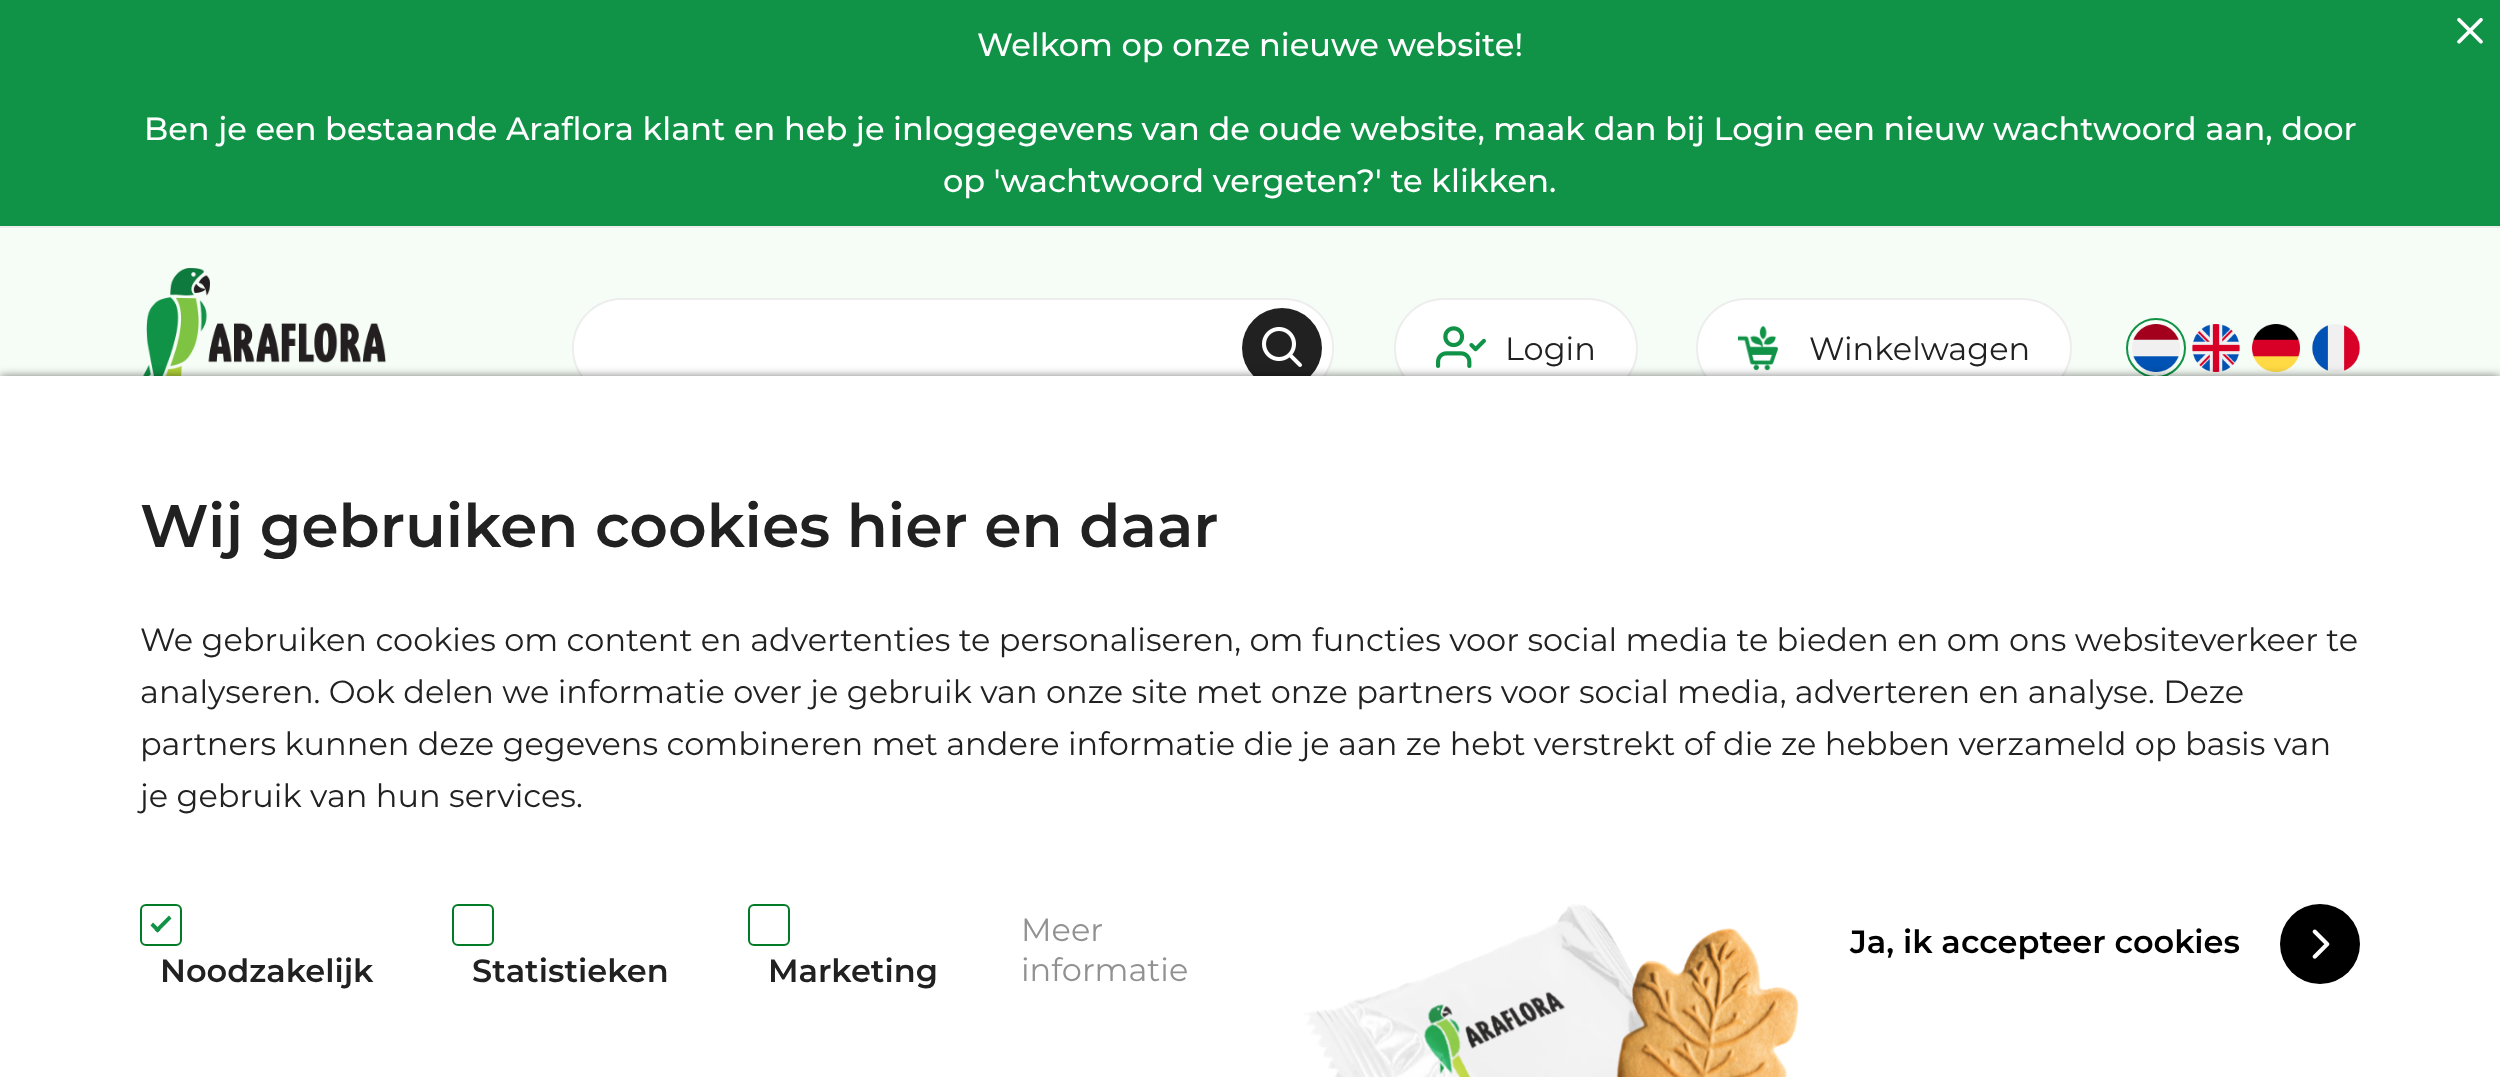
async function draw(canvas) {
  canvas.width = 2500;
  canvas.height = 1077;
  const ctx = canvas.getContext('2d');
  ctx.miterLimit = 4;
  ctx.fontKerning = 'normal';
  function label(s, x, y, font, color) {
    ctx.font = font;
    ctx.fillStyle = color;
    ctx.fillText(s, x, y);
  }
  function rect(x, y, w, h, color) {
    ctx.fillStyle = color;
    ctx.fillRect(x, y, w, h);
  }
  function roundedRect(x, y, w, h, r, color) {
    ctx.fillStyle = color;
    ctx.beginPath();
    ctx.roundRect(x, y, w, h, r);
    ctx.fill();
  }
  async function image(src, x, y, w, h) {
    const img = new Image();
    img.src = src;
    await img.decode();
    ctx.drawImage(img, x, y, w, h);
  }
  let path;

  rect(0, 0, 2500, 1077, '#109247');
  label('Welkom op onze nieuwe website!', 977, 56, '500 32px Montserrat', '#fff');
  label('Ben je een bestaande Araflora klant en heb je inloggegevens van de oude website, maak dan bij Login een nieuw wachtwoord aan, door', 144, 140, '500 32px Montserrat', '#fff');
  label('op \'wachtwoord vergeten?\' te klikken.', 943, 192, '500 32px Montserrat', '#fff');
  await image('assets/img1.png', 2457, 17, 26, 27);
  rect(0, 228, 2500, 148, '#f6fcf6');
  rect(0, 226, 2500, 2, '#ededed');
  await image('assets/img2.png', 143, 268, 243, 108);
  ctx.beginPath();
  ctx.roundRect(573, 299, 760, 98, 49);
  ctx.strokeStyle = '#ededed';
  ctx.lineWidth = 2;
  ctx.stroke();
  roundedRect(574, 300, 758, 96, 48, '#fff');
  ctx.fillStyle = '#212121';
  ctx.beginPath();
  ctx.arc(1282, 348, 40, 0, 2 * Math.PI);
  ctx.fill();
  await image('assets/img3.png', 1262, 327, 40, 40);
  ctx.fillStyle = '#fff';
  ctx.beginPath();
  ctx.roundRect(1395, 299, 242, 98, 49);
  ctx.fill();
  ctx.stroke();
  await image('assets/img4.png', 1436, 326, 50, 42);
  label('Login', 1505, 360, '32px Montserrat', '#212121');
  ctx.fillStyle = '#fff';
  ctx.beginPath();
  ctx.roundRect(1697, 299, 374, 98, 49);
  ctx.fill();
  ctx.stroke();
  await image('assets/img5.png', 1737, 326, 41, 45);
  label('Winkelwagen', 1809, 360, '32px Montserrat', '#212121');
  await image('assets/img6.png', 2132, 324, 48, 48);
  ctx.beginPath();
  ctx.arc(2156, 348, 29, 0, 2 * Math.PI);
  ctx.strokeStyle = '#109247';
  ctx.stroke();
  await image('assets/img7.png', 2192, 324, 48, 48);
  await image('assets/img8.png', 2252, 324, 48, 48);
  await image('assets/img9.png', 2312, 324, 48, 48);
  ctx.fillStyle = '#00000080';
  ctx.filter = 'blur(5px)';
  ctx.beginPath();
  ctx.rect(0, 376, 2500, 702);
  ctx.fill();
  ctx.filter = 'none';
  rect(0, 376, 2500, 701, '#fff');
  label('Wij gebruiken cookies hier en daar', 140, 547, '600 60px Montserrat', '#212121');
  label('We gebruiken cookies om content en advertenties te personaliseren, om functies voor social media te bieden en om ons websiteverkeer te', 140, 651, '32px Montserrat', '#212121');
  label('analyseren. Ook delen we informatie over je gebruik van onze site met onze partners voor social media, adverteren en analyse. Deze', 140, 703, '32px Montserrat', '#212121');
  label('partners kunnen deze gegevens combineren met andere informatie die je aan ze hebt verstrekt of die ze hebben verzameld op basis van', 140, 755, '32px Montserrat', '#212121');
  label('je gebruik van hun services.', 140, 807, '32px Montserrat', '#212121');
  await image('assets/img10.png', 1304, 904, 495, 173);
  ctx.beginPath();
  ctx.roundRect(141, 905, 40, 40, 5);
  ctx.strokeStyle = '#027b26';
  ctx.stroke();
  ctx.fillStyle = '#109247';
  path = new Path2D('M169 915.5L171.5 918.5L157.5 932.5L154.5 930Z');
  ctx.fill(path);
  path = new Path2D('M153 922.5L160.5 930L157.5 932.5L150.5 925.5Z');
  ctx.fill(path);
  label('Noodzakelijk', 160, 982, '600 32px Montserrat', '#212121');
  ctx.beginPath();
  ctx.roundRect(453, 905, 40, 40, 5);
  ctx.stroke();
  label('Statistieken', 472, 982, '600 32px Montserrat', '#212121');
  ctx.beginPath();
  ctx.roundRect(749, 905, 40, 40, 5);
  ctx.stroke();
  label('Marketing', 768, 982, '600 32px Montserrat', '#212121');
  label('Meer', 1021, 941, '32px Montserrat', '#919191');
  label('informatie', 1021, 981, '32px Montserrat', '#919191');
  label('Ja, ik accepteer cookies', 1850, 953, '600 32px Montserrat', '#000');
  ctx.beginPath();
  ctx.arc(2320, 944, 40, 0, 2 * Math.PI);
  ctx.fill();
  await image('assets/img11.png', 2312, 929, 18, 30);
}

draw(document.querySelector('canvas'));
